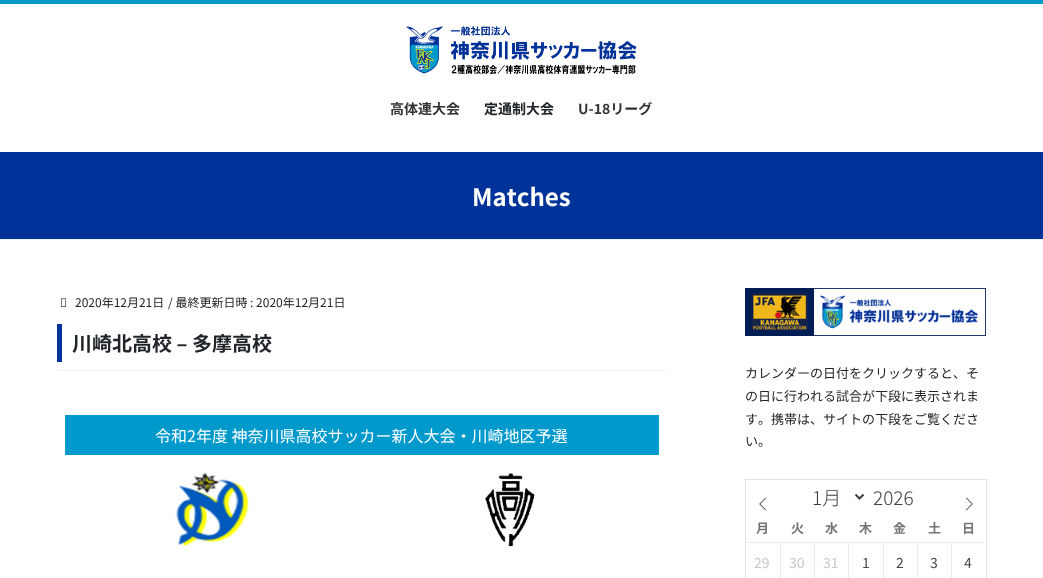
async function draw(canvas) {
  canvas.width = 1043;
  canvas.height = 578;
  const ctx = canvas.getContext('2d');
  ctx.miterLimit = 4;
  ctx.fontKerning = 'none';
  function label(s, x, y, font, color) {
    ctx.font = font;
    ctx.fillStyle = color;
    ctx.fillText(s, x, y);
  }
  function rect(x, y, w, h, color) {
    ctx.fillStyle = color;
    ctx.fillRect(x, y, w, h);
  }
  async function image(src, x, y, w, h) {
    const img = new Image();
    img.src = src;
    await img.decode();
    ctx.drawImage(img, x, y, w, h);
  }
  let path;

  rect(0, 0, 1043, 578, '#fff');
  rect(0, 0, 1043, 4, '#09c');
  await image('assets/img1.png', 406, 26, 231, 49);
  label('高体連大会', 390, 114, 'bold 14px Noto Sans JP', '#333');
  label('定通制大会', 484, 114, 'bold 14px Noto Sans JP', '#212529');
  label('U-18リーグ', 578, 114, 'bold 14px Noto Sans JP', '#333');
  rect(0, 152, 1043, 87, '#039');
  label('Matches', 472, 206, 'bold 24px Noto Sans JP', '#fff');
  rect(0, 239, 1043, 1, '#f2f2f2');
  rect(57, 370, 610, 1, '#f2f2f2');
  await image('assets/img2.png', 61, 298, 6, 9);
  label('2020年12月21日', 75, 307, '12px Noto Sans JP', '#212529');
  label('/ 最終更新日時 : 2020年12月21日', 168, 307, '12px Noto Sans JP', '#212529');
  rect(57, 324, 5, 38, '#039');
  label('川崎北高校 – 多摩高校', 72, 351, 'bold 20px Noto Sans JP', '#212529');
  rect(65, 415, 594, 40, '#09c');
  label('令和2年度 神奈川県高校サッカー新人大会・川崎地区予選', 155, 442, '16px Noto Sans JP', '#fff');
  await image('assets/img3.png', 175, 472, 74, 75);
  await image('assets/img4.png', 485, 473, 50, 74);
  await image('assets/img5.png', 745, 288, 241, 48);
  label('カレンダーの日付をクリックすると、そ', 745, 378, '13px Noto Sans JP', '#212529');
  label('の日に行われる試合が下段に表示されま', 745, 401, '13px Noto Sans JP', '#212529');
  label('す。携帯は、サイトの下段をご覧くださ', 745, 424, '13px Noto Sans JP', '#212529');
  label('い。', 745, 446, '13px Noto Sans JP', '#212529');
  ctx.strokeStyle = '#dee2e6';
  ctx.strokeRect(745.5, 479.5, 241, 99);
  await image('assets/img6.png', 759, 497, 8, 14);
  path = new Path2D('M855.5 494.5L859.5 498.5L863.5 494.5');
  ctx.strokeStyle = '#3c3f40';
  ctx.lineWidth = 2;
  ctx.stroke(path);
  label('1月', 812, 505, '300 19px Noto Sans JP', '#3c3f40');
  label('2026', 873, 505, '300 19px Noto Sans JP', '#3c3f40');
  await image('assets/img7.png', 965, 497, 8, 14);
  label('月', 756, 533, 'bold 13px Noto Sans JP', '#757575');
  label('火', 791, 533, 'bold 13px Noto Sans JP', '#757575');
  label('水', 825, 533, 'bold 13px Noto Sans JP', '#757575');
  label('木', 859, 533, 'bold 13px Noto Sans JP', '#757575');
  label('金', 893, 533, 'bold 13px Noto Sans JP', '#757575');
  label('土', 928, 533, 'bold 13px Noto Sans JP', '#757575');
  label('日', 962, 533, 'bold 13px Noto Sans JP', '#757575');
  ctx.fillStyle = '#e9e9e9';
  path = new Path2D('M746 542H780L779 543H746Z');
  ctx.fill(path);
  label('29', 754, 568, '14px Noto Sans JP', '#c6c8c8');
  ctx.fillStyle = '#e9e9e9';
  path = new Path2D('M780 542H814L813 543H781Z');
  ctx.fill(path);
  rect(780, 542, 1, 36, '#e9e9e9');
  label('30', 789, 568, '14px Noto Sans JP', '#c6c8c8');
  ctx.fillStyle = '#e9e9e9';
  path = new Path2D('M814 542H848L847 543H815Z');
  ctx.fill(path);
  rect(814, 542, 1, 36, '#e9e9e9');
  label('31', 823, 568, '14px Noto Sans JP', '#c6c8c8');
  ctx.fillStyle = '#e9e9e9';
  path = new Path2D('M848 542H883L882 543H849Z');
  ctx.fill(path);
  rect(848, 542, 1, 36, '#e9e9e9');
  label('1', 862, 568, '14px Noto Sans JP', '#404848');
  ctx.fillStyle = '#e9e9e9';
  path = new Path2D('M883 542H917L916 543H884Z');
  ctx.fill(path);
  rect(883, 542, 1, 36, '#e9e9e9');
  label('2', 896, 568, '14px Noto Sans JP', '#404848');
  ctx.fillStyle = '#e9e9e9';
  path = new Path2D('M917 542H951L950 543H918Z');
  ctx.fill(path);
  rect(917, 542, 1, 36, '#e9e9e9');
  label('3', 930, 568, '14px Noto Sans JP', '#404848');
  ctx.fillStyle = '#e9e9e9';
  path = new Path2D('M951 542H985L984 543H952Z');
  ctx.fill(path);
  rect(951, 542, 1, 36, '#e9e9e9');
  label('4', 964, 568, '14px Noto Sans JP', '#404848');
}

draw(document.querySelector('canvas'));
